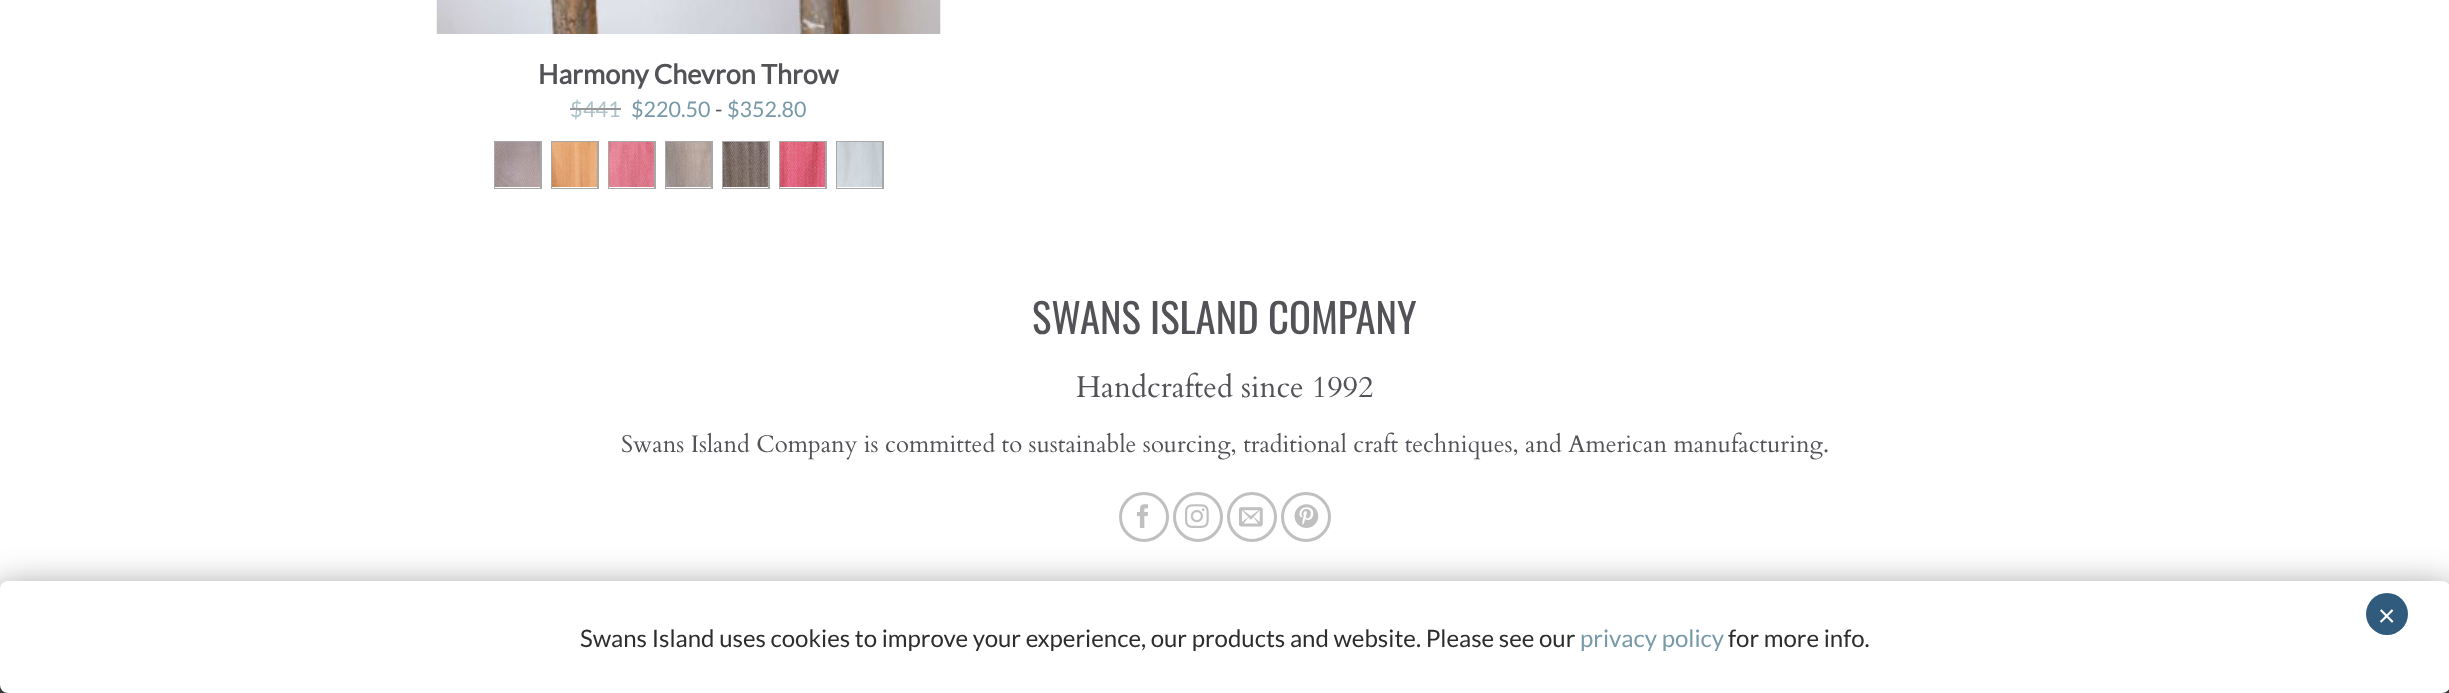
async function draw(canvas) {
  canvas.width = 2449;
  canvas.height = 693;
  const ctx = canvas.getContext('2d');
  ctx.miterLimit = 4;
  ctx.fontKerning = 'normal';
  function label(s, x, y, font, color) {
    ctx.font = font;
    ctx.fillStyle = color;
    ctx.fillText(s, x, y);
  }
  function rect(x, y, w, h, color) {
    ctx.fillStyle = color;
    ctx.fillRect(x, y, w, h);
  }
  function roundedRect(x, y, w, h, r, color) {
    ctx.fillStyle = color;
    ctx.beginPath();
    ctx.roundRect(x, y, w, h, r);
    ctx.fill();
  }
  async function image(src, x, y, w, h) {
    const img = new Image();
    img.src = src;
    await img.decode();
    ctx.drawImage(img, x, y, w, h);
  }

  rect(0, 0, 2449, 693, '#fff');
  await image('assets/img1.png', 436, 0, 505, 34);
  label('Harmony Chevron Throw', 538, 84, 'bold 27px Lato', '#525257');
  label('$', 570, 117, '21.5px Lato', '#aec2ca');
  rect(570, 108, 14, 2, '#97979a');
  label('441', 583, 117, '21.5px Lato', '#aec2ca');
  rect(584, 108, 37, 2, '#97979a');
  label('$220.50', 631, 117, '21.5px Lato', '#7899a7');
  label('-', 715, 117, '21.5px Lato', '#525257');
  label('$352.80', 727, 117, '21.5px Lato', '#7899a7');
  ctx.strokeStyle = '#a8a8a8';
  ctx.lineWidth = 2;
  ctx.strokeRect(495, 142, 46, 46);
  rect(495, 187, 45, 1, '#fff');
  await image('assets/img2.png', 495, 142, 45, 45);
  ctx.strokeRect(552, 142, 46, 46);
  rect(552, 187, 45, 1, '#fff');
  await image('assets/img3.png', 552, 142, 45, 45);
  ctx.strokeRect(609, 142, 46, 46);
  rect(609, 187, 45, 1, '#fff');
  await image('assets/img4.png', 609, 142, 45, 45);
  ctx.strokeRect(666, 142, 46, 46);
  rect(666, 187, 45, 1, '#fff');
  await image('assets/img5.png', 666, 142, 45, 45);
  ctx.strokeRect(723, 142, 46, 46);
  rect(723, 187, 45, 1, '#fff');
  await image('assets/img6.png', 723, 142, 45, 45);
  ctx.strokeRect(780, 142, 46, 46);
  rect(780, 187, 45, 1, '#fff');
  await image('assets/img7.png', 780, 142, 45, 45);
  ctx.strokeRect(837, 142, 46, 46);
  rect(837, 187, 45, 1, '#fff');
  await image('assets/img8.png', 837, 142, 45, 45);
  label('SWANS ISLAND COMPANY', 1032, 334, '40.75px Oswald', '#525257');
  label('Handcrafted since 1992', 1076, 397, '30px Cardo', '#525257');
  label('Swans Island Company is committed to sustainable sourcing, traditional craft techniques, and American manufacturing.', 621, 452, '24px Cardo', '#525257');
  ctx.beginPath();
  ctx.arc(1144, 517, 23.5, 0, 2 * Math.PI);
  ctx.strokeStyle = '#c0c0c0';
  ctx.lineWidth = 3;
  ctx.stroke();
  await image('assets/img9.png', 1137, 504, 11, 24);
  ctx.beginPath();
  ctx.arc(1198, 517, 23.5, 0, 2 * Math.PI);
  ctx.stroke();
  await image('assets/img10.png', 1185, 504, 24, 24);
  ctx.beginPath();
  ctx.arc(1252, 517, 23.5, 0, 2 * Math.PI);
  ctx.stroke();
  await image('assets/img11.png', 1239, 507, 24, 20);
  ctx.beginPath();
  ctx.arc(1306, 517, 23.5, 0, 2 * Math.PI);
  ctx.stroke();
  await image('assets/img12.png', 1294, 504, 25, 24);
  rect(0, 685, 2449, 8, '#4d4d4d');
  ctx.fillStyle = '#02020280';
  ctx.filter = 'blur(19px)';
  ctx.beginPath();
  ctx.roundRect(-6, 590, 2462, 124, 14);
  ctx.fill();
  ctx.filter = 'none';
  roundedRect(0, 581, 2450, 112, 8, '#fff');
  ctx.fillStyle = '#315b7c';
  ctx.beginPath();
  ctx.arc(2387, 614, 21, 0, 2 * Math.PI);
  ctx.fill();
  label('×', 2378, 626, '30px Lato', '#fff');
  label('Swans Island uses cookies to improve your experience, our products and website. Please see our', 580, 647, '24px Lato', '#2d2d2d');
  label('privacy policy', 1580, 647, '24px Lato', '#7899a7');
  label('for more info.', 1728, 647, '24px Lato', '#2d2d2d');
}

draw(document.querySelector('canvas'));
